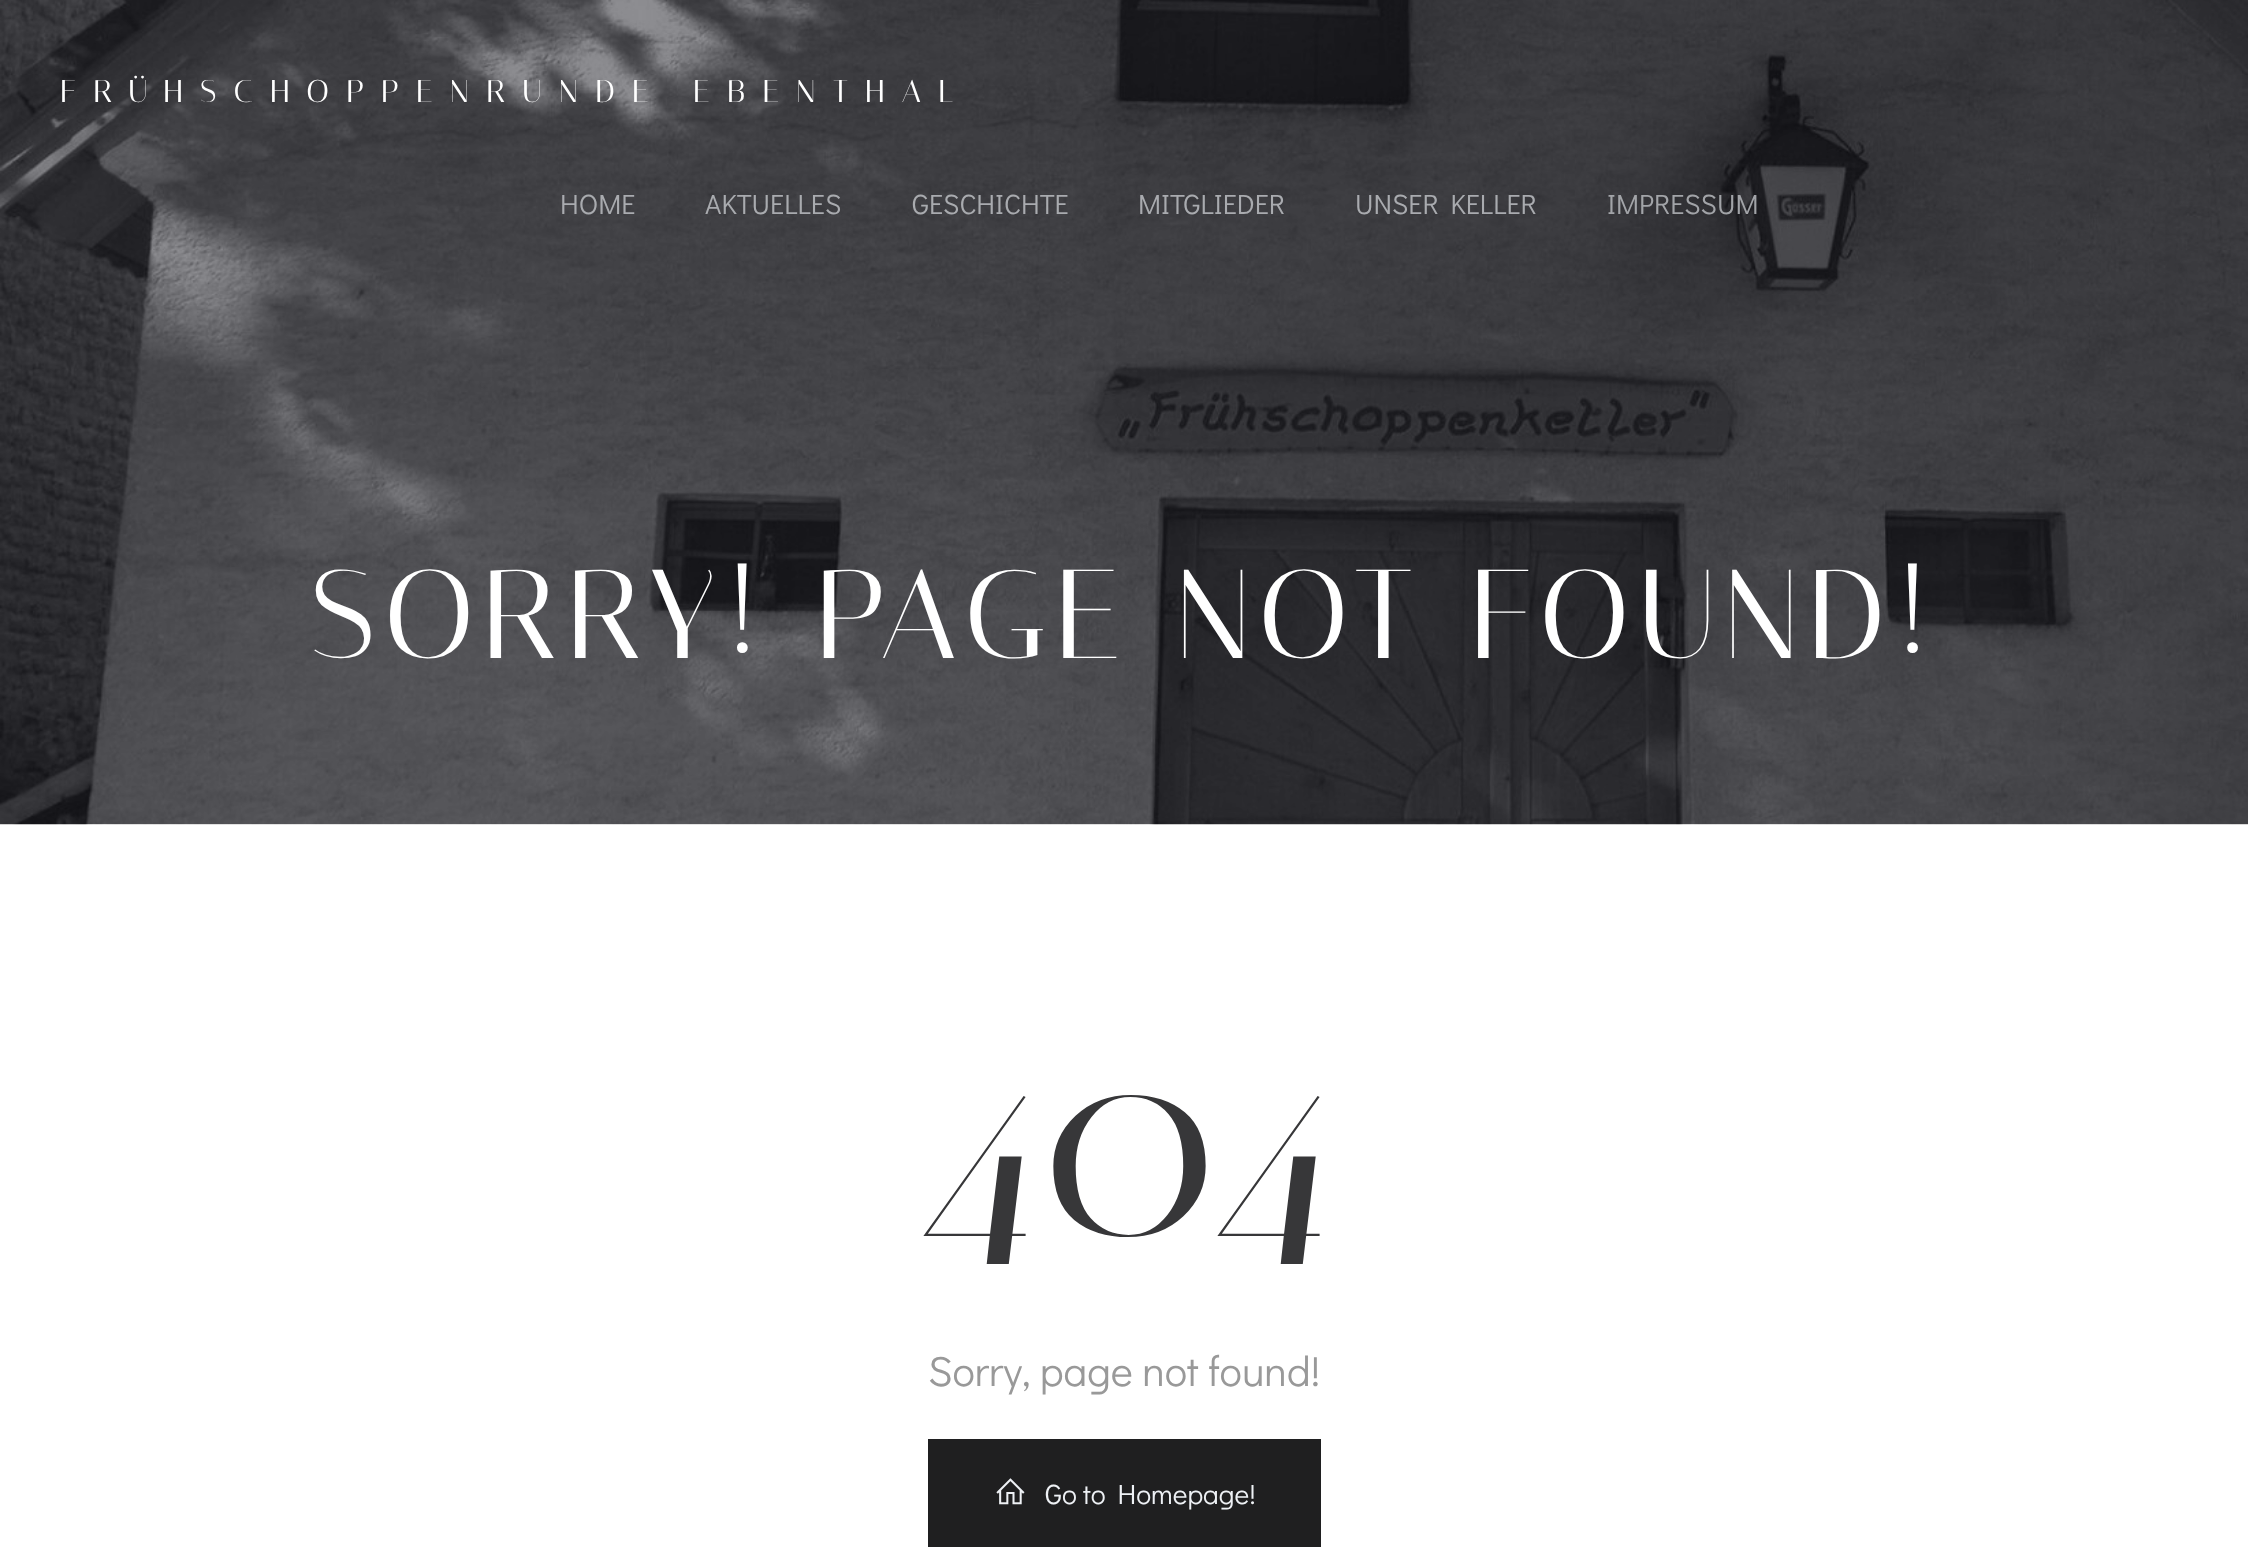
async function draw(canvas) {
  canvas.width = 2248;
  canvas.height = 1548;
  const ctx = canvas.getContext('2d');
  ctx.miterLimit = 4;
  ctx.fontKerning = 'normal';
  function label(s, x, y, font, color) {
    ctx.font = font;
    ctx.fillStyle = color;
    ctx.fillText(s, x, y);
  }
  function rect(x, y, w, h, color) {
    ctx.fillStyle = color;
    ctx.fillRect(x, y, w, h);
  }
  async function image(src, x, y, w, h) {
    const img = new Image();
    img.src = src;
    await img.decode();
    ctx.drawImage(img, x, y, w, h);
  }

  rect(0, 0, 2248, 1548, '#fff');
  await image('assets/img1.png', 0, 0, 2248, 825);
  ctx.letterSpacing = '17.5px';
  label('FRÜHSCHOPPENRUNDE EBENTHAL', 60, 102, '31.5px Italiana', '#fff');
  ctx.letterSpacing = '0px';
  label('HOME', 560, 214, '28px Didact Gothic', '#a9abaf');
  label('AKTUELLES', 705, 214, '28px Didact Gothic', '#a9abaf');
  label('GESCHICHTE', 912, 214, '28px Didact Gothic', '#a9abaf');
  label('MITGLIEDER', 1138, 214, '28px Didact Gothic', '#a9abaf');
  label('UNSER KELLER', 1355, 214, '28px Didact Gothic', '#a9abaf');
  label('IMPRESSUM', 1607, 214, '28px Didact Gothic', '#a2a4a8');
  ctx.letterSpacing = '8.75px';
  label('SORRY! PAGE NOT FOUND!', 310, 658, '126px Italiana', '#fff');
  ctx.letterSpacing = '0px';
  label('404', 915, 1236, '280px Italiana', '#373739');
  label('Sorry, page not found!', 928, 1386, '42px Didact Gothic', '#999');
  rect(928, 1439, 393, 108, '#1f1f20');
  await image('assets/img2.png', 996, 1478, 29, 27);
  label('Go to Homepage!', 1045, 1504, '28px Didact Gothic', '#eef1f5');
}

draw(document.querySelector('canvas'));
